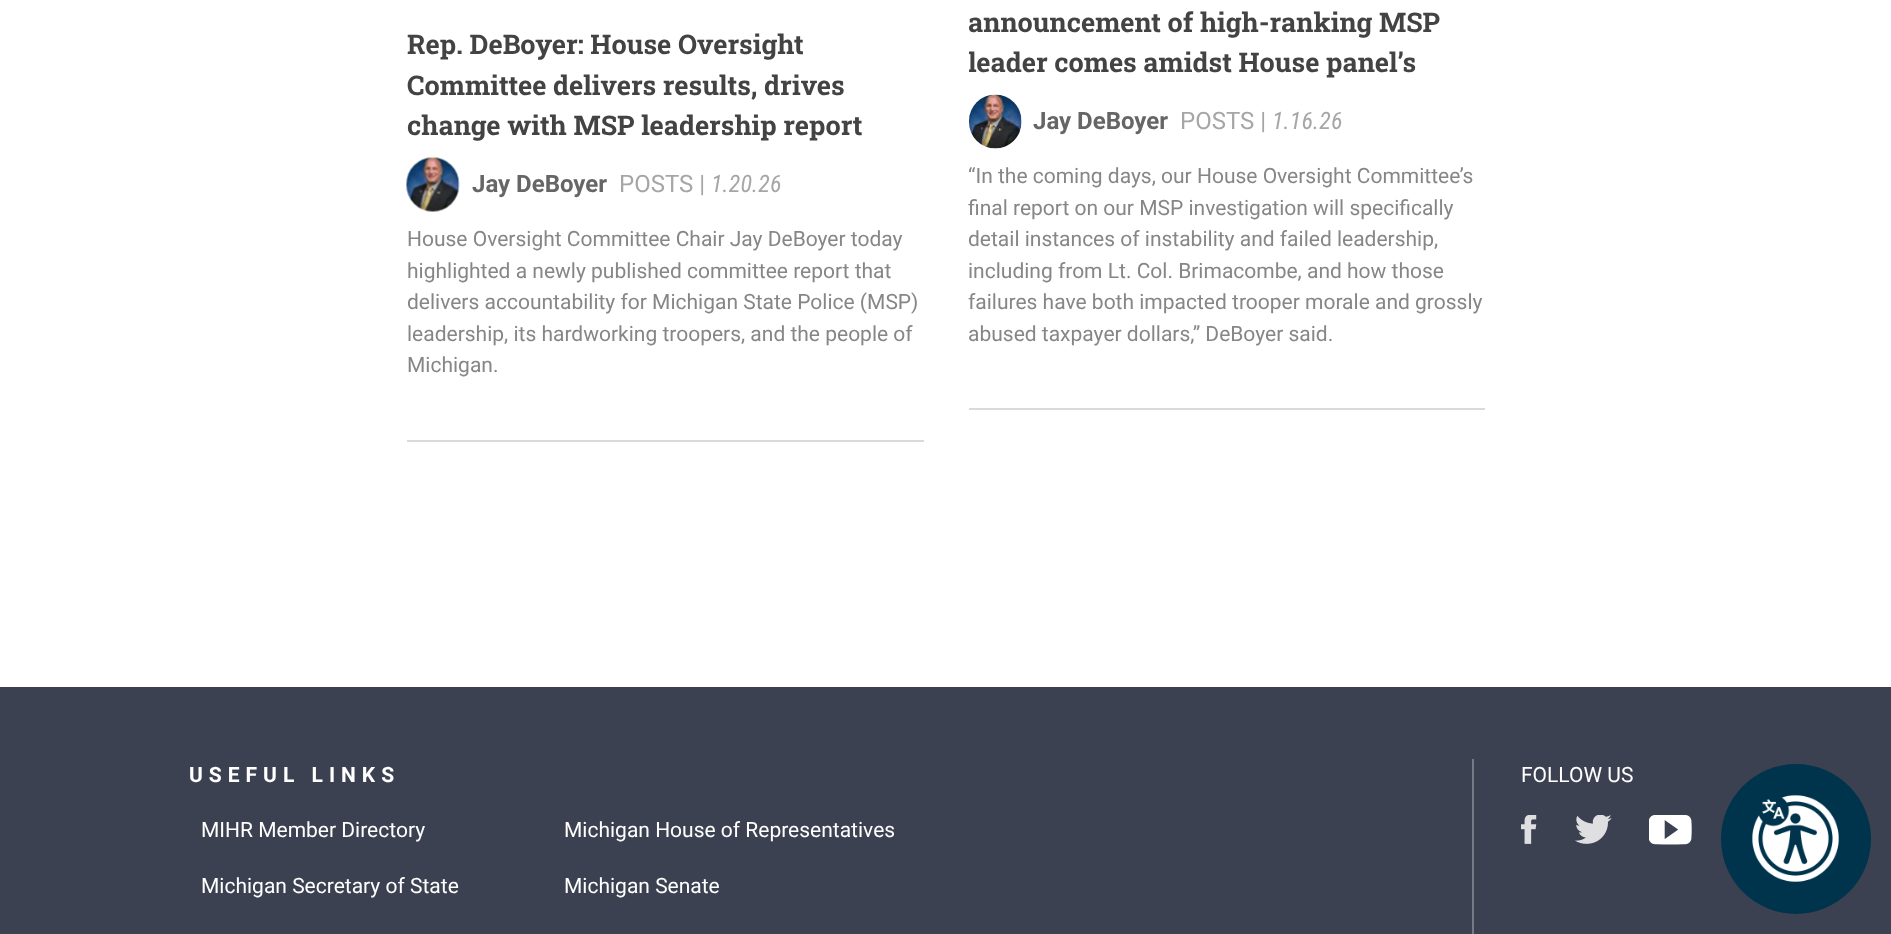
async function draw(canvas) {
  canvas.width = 1891;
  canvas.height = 934;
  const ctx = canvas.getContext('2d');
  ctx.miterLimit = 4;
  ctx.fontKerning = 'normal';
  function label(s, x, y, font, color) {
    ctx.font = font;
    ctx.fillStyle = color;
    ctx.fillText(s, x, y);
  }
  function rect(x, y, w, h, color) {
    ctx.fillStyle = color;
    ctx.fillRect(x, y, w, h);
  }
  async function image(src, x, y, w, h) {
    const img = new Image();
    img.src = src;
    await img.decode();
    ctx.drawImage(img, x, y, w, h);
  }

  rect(0, 0, 1891, 934, '#fff');
  label('Rep. DeBoyer: House Oversight', 407, 54, 'bold 27px Roboto Slab', '#434343');
  label('Committee delivers results, drives', 407, 95, 'bold 27px Roboto Slab', '#434343');
  label('change with MSP leadership report', 407, 135, 'bold 27px Roboto Slab', '#434343');
  await image('assets/img1.png', 406, 157, 54, 55);
  label('Jay DeBoyer', 472, 192, 'bold 24px Roboto', '#666');
  label('POSTS |', 619, 192, '24px Roboto', '#a6a6a6');
  label('1.20.26', 711, 192, 'italic 24px Roboto Condensed', '#a6a6a6');
  label('House Oversight Committee Chair Jay DeBoyer today', 407, 246, '21px Roboto', '#868686');
  label('highlighted a newly published committee report that', 407, 278, '21px Roboto', '#868686');
  label('delivers accountability for Michigan State Police (MSP)', 407, 309, '21px Roboto', '#868686');
  label('leadership, its hardworking troopers, and the people of', 407, 341, '21px Roboto', '#868686');
  label('Michigan.', 407, 372, '21px Roboto', '#868686');
  rect(407, 440, 517, 2, '#dadada');
  label('announcement of high-ranking MSP', 968, 32, 'bold 27px Roboto Slab', '#434343');
  ctx.save();
  ctx.beginPath();
  ctx.rect(969, 0, 516, 83);
  ctx.clip();
  label('leader comes amidst House panel’s', 968, 72, 'bold 27px Roboto Slab', '#434343');
  ctx.restore();
  await image('assets/img2.png', 969, 94, 53, 55);
  label('Jay DeBoyer', 1033, 129, 'bold 24px Roboto', '#666');
  label('POSTS |', 1180, 129, '24px Roboto', '#a6a6a6');
  label('1.16.26', 1272, 129, 'italic 24px Roboto Condensed', '#a6a6a6');
  label('“In the coming days, our House Oversight Committee’s', 968, 183, '21px Roboto', '#868686');
  label('final report on our MSP investigation will specifically', 968, 215, '21px Roboto', '#868686');
  label('detail instances of instability and failed leadership,', 968, 246, '21px Roboto', '#868686');
  label('including from Lt. Col. Brimacombe, and how those', 968, 278, '21px Roboto', '#868686');
  label('failures have both impacted trooper morale and grossly', 968, 309, '21px Roboto', '#868686');
  label('abused taxpayer dollars,” DeBoyer said.', 968, 341, '21px Roboto', '#868686');
  rect(969, 408, 516, 2, '#dadada');
  rect(0, 687, 1891, 247, '#3c4151');
  ctx.letterSpacing = '6px';
  label('USEFUL LINKS', 189, 782, 'bold 21px Roboto', '#fff');
  ctx.letterSpacing = '0px';
  label('MIHR Member Directory', 201, 837, '21px Roboto', '#fff');
  label('Michigan House of Representatives', 564, 837, '21px Roboto', '#fff');
  label('Michigan Secretary of State', 201, 893, '21px Roboto', '#fff');
  label('Michigan Senate', 564, 893, '21px Roboto', '#fff');
  rect(1472, 759, 2, 175, '#767a85');
  label('FOLLOW US', 1521, 782, '21px Roboto', '#fff');
  await image('assets/img3.png', 1521, 815, 16, 29);
  await image('assets/img4.png', 1575, 815, 37, 29);
  await image('assets/img5.png', 1649, 815, 43, 30);
  ctx.fillStyle = '#00344c';
  ctx.beginPath();
  ctx.arc(1796, 839, 75, 0, 2 * Math.PI);
  ctx.fill();
  await image('assets/img6.png', 1752, 795, 87, 87);
}

draw(document.querySelector('canvas'));
